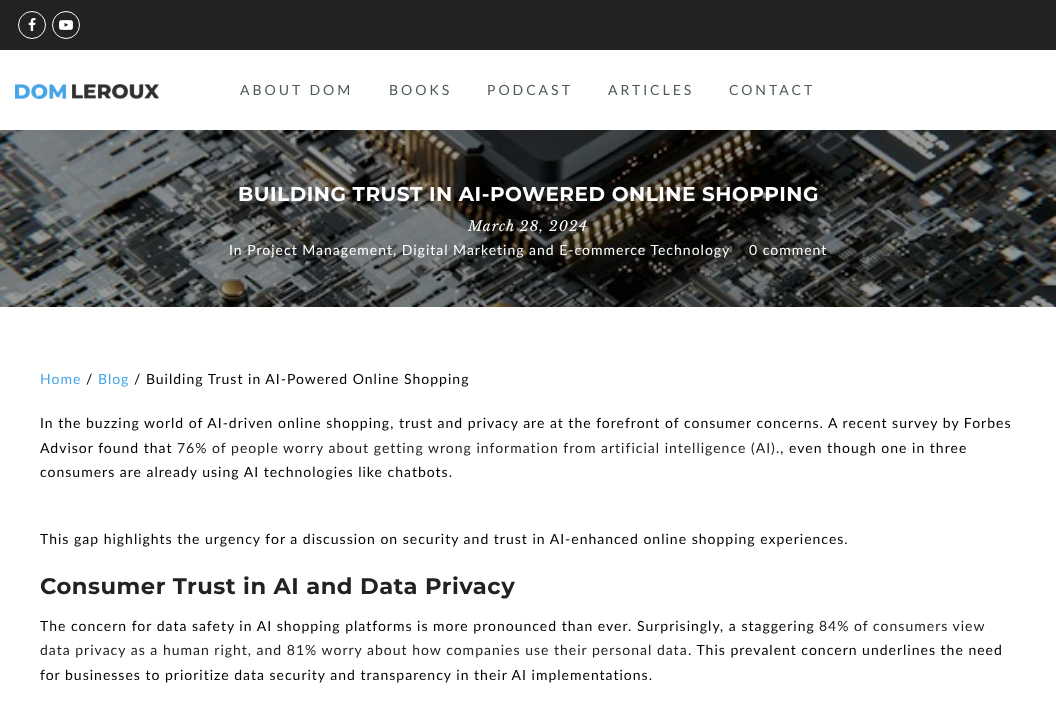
async function draw(canvas) {
  canvas.width = 1056;
  canvas.height = 703;
  const ctx = canvas.getContext('2d');
  ctx.miterLimit = 4;
  ctx.fontKerning = 'normal';
  function label(s, x, y, font, color) {
    ctx.font = font;
    ctx.fillStyle = color;
    ctx.fillText(s, x, y);
  }
  function rect(x, y, w, h, color) {
    ctx.fillStyle = color;
    ctx.fillRect(x, y, w, h);
  }
  async function image(src, x, y, w, h) {
    const img = new Image();
    img.src = src;
    await img.decode();
    ctx.drawImage(img, x, y, w, h);
  }

  rect(0, 0, 1056, 703, '#fff');
  rect(0, 0, 1056, 50, '#222');
  ctx.beginPath();
  ctx.arc(32, 25, 13.5, 0, 2 * Math.PI);
  ctx.strokeStyle = '#fff';
  ctx.stroke();
  await image('assets/img1.png', 28, 18, 8, 13);
  ctx.beginPath();
  ctx.arc(66, 25, 13.5, 0, 2 * Math.PI);
  ctx.stroke();
  await image('assets/img2.png', 59, 20, 14, 10);
  await image('assets/img3.png', 15, 84, 144, 15);
  ctx.letterSpacing = '3px';
  label('ABOUT DOM', 240, 95, '14px Lato', '#4d5959');
  label('BOOKS', 389, 95, '14px Lato', '#4d5959');
  label('PODCAST', 487, 95, '14px Lato', '#4d5959');
  label('ARTICLES', 608, 95, '14px Lato', '#4d5959');
  label('CONTACT', 729, 95, '14px Lato', '#4d5959');
  await image('assets/img4.png', 0, 130, 1056, 177);
  ctx.letterSpacing = '0.5px';
  label('BUILDING TRUST IN AI-POWERED ONLINE SHOPPING', 238, 201, 'bold 20px Montserrat', '#fff');
  ctx.letterSpacing = '1px';
  label('March 28, 2024', 468, 231, 'italic 14px Libre Baskerville', '#fff');
  label('In Project Management, Digital Marketing and E-commerce Technology', 229, 255, '14px Lato', '#fff');
  label('0 comment', 749, 255, '14px Lato', '#fff');
  label('Home', 40, 384, '14px Lato', '#46a5e5');
  label('/', 86, 384, '14px Lato', '#000');
  label('Blog', 98, 384, '14px Lato', '#46a5e5');
  label('/ Building Trust in AI-Powered Online Shopping', 134, 384, '14px Lato', '#000');
  label('In the buzzing world of AI-driven online shopping, trust and privacy are at the forefront of consumer concerns. A recent survey by Forbes', 40, 428, '14px Lato', '#000');
  label('Advisor found that', 40, 453, '14px Lato', '#000');
  label('76% of people worry about getting wrong information from artificial intelligence (AI)', 177, 453, '14px Lato', '#222');
  label('., even though one in three', 776, 453, '14px Lato', '#000');
  label('consumers are already using AI technologies like chatbots.', 40, 477, '14px Lato', '#000');
  label('This gap highlights the urgency for a discussion on security and trust in AI-enhanced online shopping experiences.', 40, 544, '14px Lato', '#000');
  ctx.letterSpacing = '0.5px';
  label('Consumer Trust in AI and Data Privacy', 40, 594, 'bold 22.65px Montserrat', '#222');
  ctx.letterSpacing = '1px';
  label('The concern for data safety in AI shopping platforms is more pronounced than ever. Surprisingly, a staggering', 40, 631, '14px Lato', '#000');
  label('84% of consumers view', 819, 631, '14px Lato', '#222');
  label('data privacy as a human right, and 81% worry about how companies use their personal data', 40, 655, '14px Lato', '#222');
  label('. This prevalent concern underlines the need', 688, 655, '14px Lato', '#000');
  label('for businesses to prioritize data security and transparency in their AI implementations.', 40, 680, '14px Lato', '#000');
}

draw(document.querySelector('canvas'));
